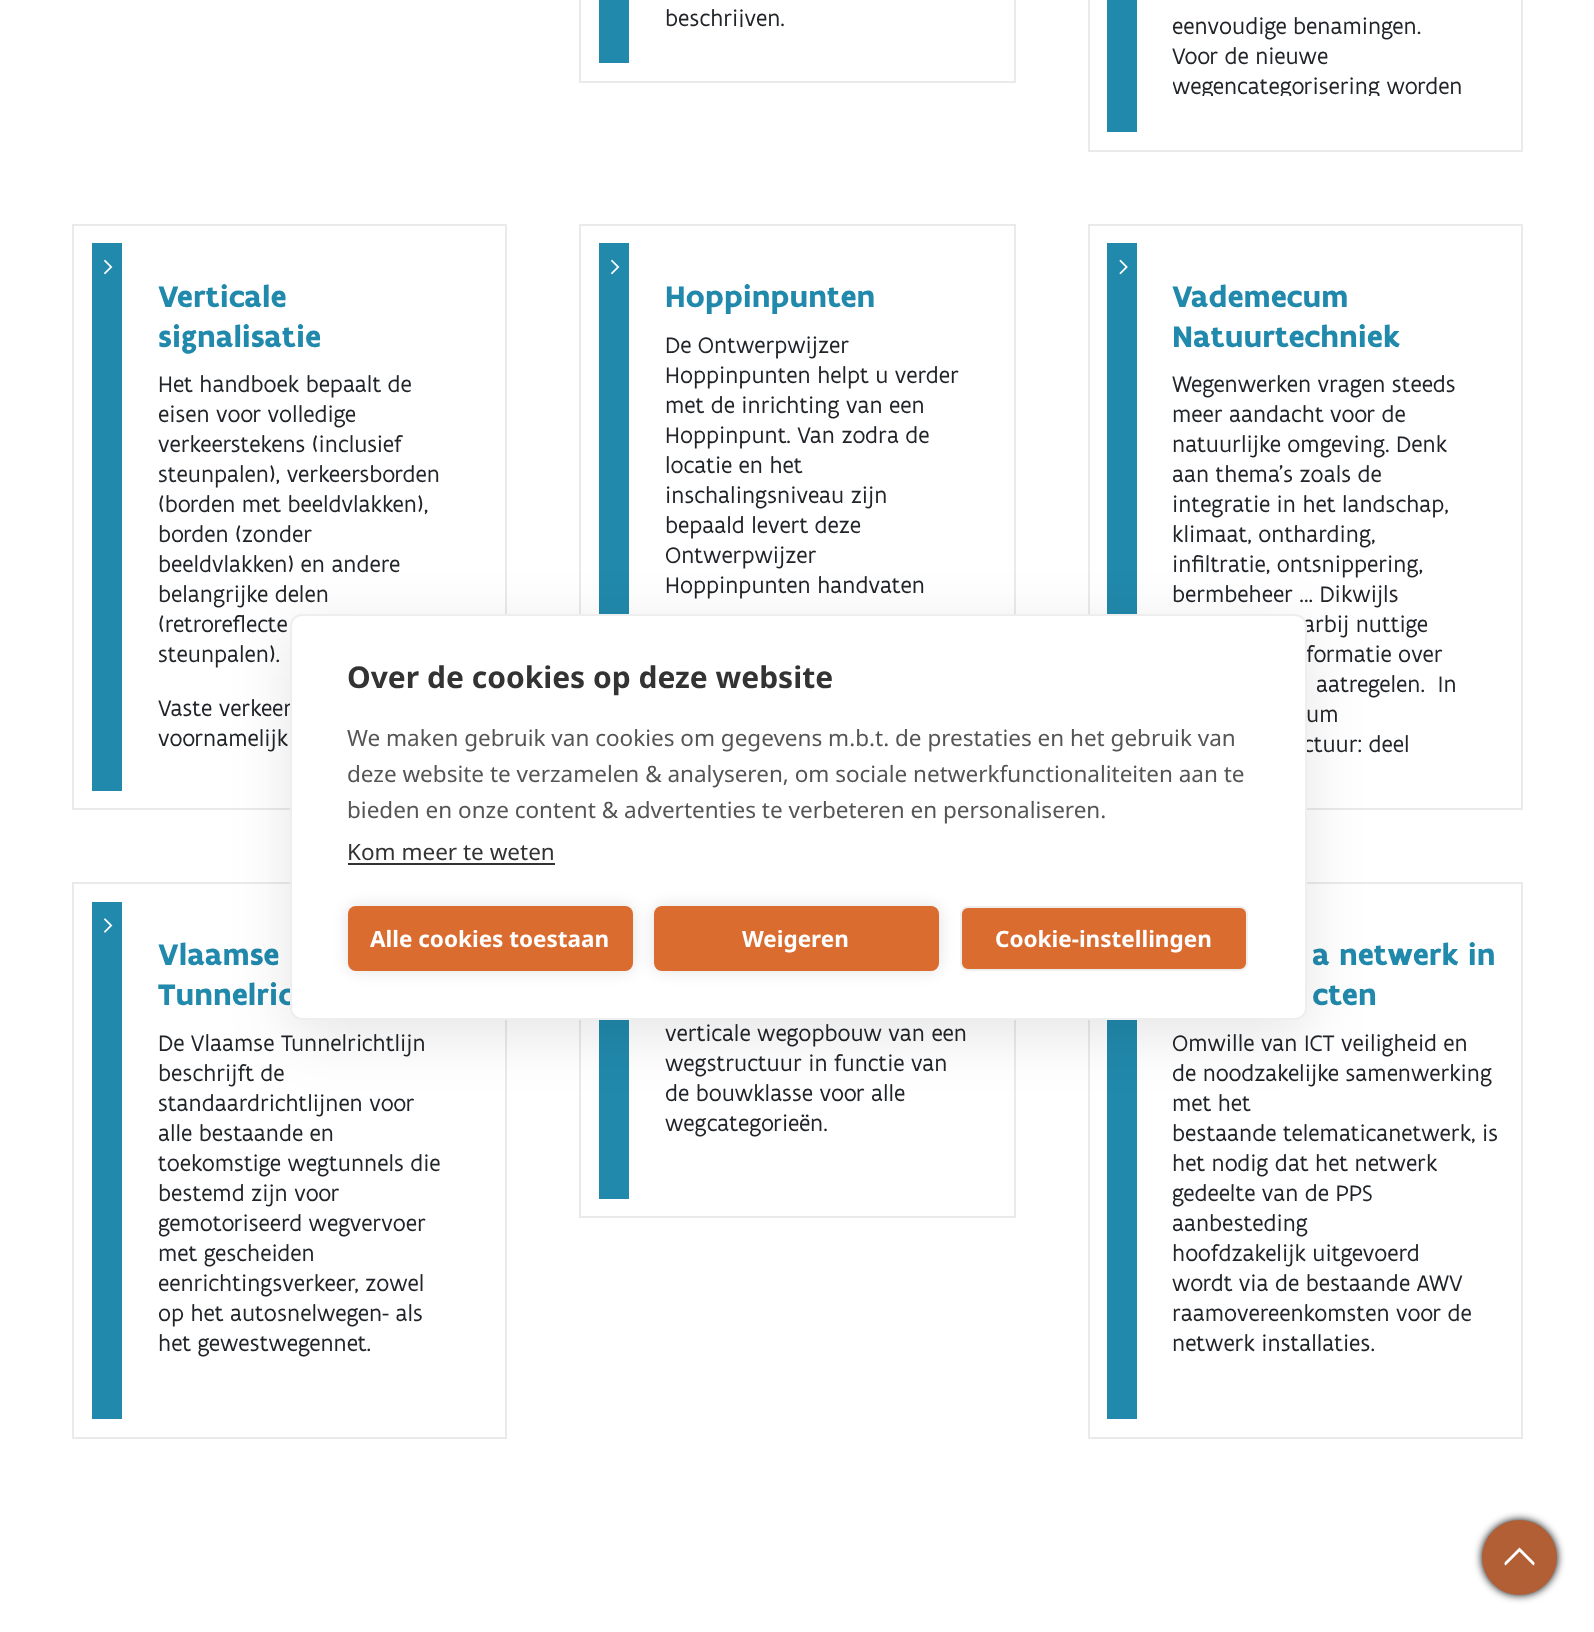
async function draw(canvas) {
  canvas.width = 1594;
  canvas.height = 1632;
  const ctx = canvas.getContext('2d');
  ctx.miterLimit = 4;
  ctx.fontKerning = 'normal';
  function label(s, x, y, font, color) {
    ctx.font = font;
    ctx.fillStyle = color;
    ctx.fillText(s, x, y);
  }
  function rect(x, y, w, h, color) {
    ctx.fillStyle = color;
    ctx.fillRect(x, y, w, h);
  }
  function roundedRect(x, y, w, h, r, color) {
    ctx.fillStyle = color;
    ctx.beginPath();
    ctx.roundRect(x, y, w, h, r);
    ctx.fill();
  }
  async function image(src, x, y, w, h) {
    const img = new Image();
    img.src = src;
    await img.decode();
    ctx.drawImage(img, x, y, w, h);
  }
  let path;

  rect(0, 0, 1594, 1632, '#fff');
  ctx.strokeStyle = '#eaeaea';
  ctx.lineWidth = 2;
  ctx.strokeRect(580, -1, 435, 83);
  rect(599, 0, 30, 63, '#2189ac');
  ctx.save();
  ctx.beginPath();
  ctx.rect(665, 0, 334, 27);
  ctx.clip();
  label('beschrijven.', 665, 26, '24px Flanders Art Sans', '#212529');
  ctx.restore();
  ctx.strokeRect(1089, -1, 433, 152);
  rect(1107, 0, 30, 132, '#2189ac');
  label('eenvoudige benamingen.', 1172, 34, '24px Flanders Art Sans', '#212529');
  label('Voor de nieuwe', 1172, 64, '24px Flanders Art Sans', '#212529');
  ctx.save();
  ctx.beginPath();
  ctx.rect(1173, 0, 294, 96);
  ctx.clip();
  label('wegencategorisering worden', 1172, 94, '24px Flanders Art Sans', '#212529');
  ctx.restore();
  ctx.strokeRect(73, 225, 433, 584);
  rect(92, 243, 30, 548, '#2189ac');
  await image('assets/img1.png', 103, 259, 10, 16);
  label('Verticale', 158, 307, 'bold 31.75px Flanders Art Sans', '#2189ac');
  label('signalisatie', 158, 347, 'bold 31.75px Flanders Art Sans', '#2189ac');
  label('Het handboek bepaalt de', 158, 392, '24px Flanders Art Sans', '#212529');
  label('eisen voor volledige', 158, 422, '24px Flanders Art Sans', '#212529');
  label('verkeerstekens (inclusief', 158, 452, '24px Flanders Art Sans', '#212529');
  label('steunpalen), verkeersborden', 158, 482, '24px Flanders Art Sans', '#212529');
  label('(borden met beeldvlakken),', 158, 512, '24px Flanders Art Sans', '#212529');
  label('borden (zonder', 158, 542, '24px Flanders Art Sans', '#212529');
  label('beeldvlakken) en andere', 158, 572, '24px Flanders Art Sans', '#212529');
  label('belangrijke delen', 158, 602, '24px Flanders Art Sans', '#212529');
  label('(retroreflecte', 158, 632, '24px Flanders Art Sans', '#212529');
  label('steunpalen).', 158, 662, '24px Flanders Art Sans', '#212529');
  label('Vaste verkeer', 158, 716, '24px Flanders Art Sans', '#212529');
  label('voornamelijk', 158, 746, '24px Flanders Art Sans', '#212529');
  ctx.strokeRect(580, 225, 435, 544);
  rect(599, 243, 30, 371, '#2189ac');
  await image('assets/img1.png', 610, 259, 10, 16);
  label('Hoppinpunten', 665, 307, 'bold 31.75px Flanders Art Sans', '#2189ac');
  label('De Ontwerpwijzer', 665, 353, '24px Flanders Art Sans', '#212529');
  label('Hoppinpunten helpt u verder', 665, 383, '24px Flanders Art Sans', '#212529');
  label('met de inrichting van een', 665, 413, '24px Flanders Art Sans', '#212529');
  label('Hoppinpunt. Van zodra de', 665, 443, '24px Flanders Art Sans', '#212529');
  label('locatie en het', 665, 473, '24px Flanders Art Sans', '#212529');
  label('inschalingsniveau zijn', 665, 503, '24px Flanders Art Sans', '#212529');
  label('bepaald levert deze', 665, 533, '24px Flanders Art Sans', '#212529');
  label('Ontwerpwijzer', 665, 563, '24px Flanders Art Sans', '#212529');
  label('Hoppinpunten handvaten', 665, 593, '24px Flanders Art Sans', '#212529');
  ctx.strokeRect(1089, 225, 433, 584);
  rect(1107, 243, 30, 371, '#2189ac');
  await image('assets/img2.png', 1119, 259, 9, 16);
  label('Vademecum', 1172, 307, 'bold 31.75px Flanders Art Sans', '#2189ac');
  label('Natuurtechniek', 1172, 347, 'bold 31.75px Flanders Art Sans', '#2189ac');
  label('Wegenwerken vragen steeds', 1172, 392, '24px Flanders Art Sans', '#212529');
  label('meer aandacht voor de', 1172, 422, '24px Flanders Art Sans', '#212529');
  label('natuurlijke omgeving. Denk', 1172, 452, '24px Flanders Art Sans', '#212529');
  label('aan thema’s zoals de', 1172, 482, '24px Flanders Art Sans', '#212529');
  label('integratie in het landschap,', 1172, 512, '24px Flanders Art Sans', '#212529');
  label('klimaat, ontharding,', 1172, 542, '24px Flanders Art Sans', '#212529');
  label('infiltratie, ontsnippering,', 1172, 572, '24px Flanders Art Sans', '#212529');
  label('bermbeheer ... Dikwijls', 1172, 602, '24px Flanders Art Sans', '#212529');
  label('arbij nuttige', 1303, 632, '24px Flanders Art Sans', '#212529');
  label('formatie over', 1306, 662, '24px Flanders Art Sans', '#212529');
  label('aatregelen.  In', 1316, 692, '24px Flanders Art Sans', '#212529');
  label('um', 1306, 722, '24px Flanders Art Sans', '#212529');
  label('ctuur: deel', 1303, 752, '24px Flanders Art Sans', '#212529');
  ctx.strokeRect(73, 883, 433, 555);
  rect(92, 902, 30, 517, '#2189ac');
  await image('assets/img3.png', 103, 918, 10, 15);
  label('Vlaamse', 158, 965, 'bold 31.75px Flanders Art Sans', '#2189ac');
  ctx.save();
  ctx.beginPath();
  ctx.rect(158, 938, 294, 79);
  ctx.clip();
  label('Tunnelric', 158, 1005, 'bold 31.75px Flanders Art Sans', '#2189ac');
  ctx.restore();
  label('De Vlaamse Tunnelrichtlijn', 158, 1051, '24px Flanders Art Sans', '#212529');
  label('beschrijft de', 158, 1081, '24px Flanders Art Sans', '#212529');
  label('standaardrichtlijnen voor', 158, 1111, '24px Flanders Art Sans', '#212529');
  label('alle bestaande en', 158, 1141, '24px Flanders Art Sans', '#212529');
  label('toekomstige wegtunnels die', 158, 1171, '24px Flanders Art Sans', '#212529');
  label('bestemd zijn voor', 158, 1201, '24px Flanders Art Sans', '#212529');
  label('gemotoriseerd wegvervoer', 158, 1231, '24px Flanders Art Sans', '#212529');
  label('met gescheiden', 158, 1261, '24px Flanders Art Sans', '#212529');
  label('eenrichtingsverkeer, zowel', 158, 1291, '24px Flanders Art Sans', '#212529');
  label('op het autosnelwegen- als', 158, 1321, '24px Flanders Art Sans', '#212529');
  label('het gewestwegennet.', 158, 1351, '24px Flanders Art Sans', '#212529');
  ctx.strokeRect(580, 883, 435, 334);
  rect(599, 1020, 30, 179, '#2189ac');
  label('verticale wegopbouw van een', 665, 1041, '24px Flanders Art Sans', '#212529');
  label('wegstructuur in functie van', 665, 1071, '24px Flanders Art Sans', '#212529');
  label('de bouwklasse voor alle', 665, 1101, '24px Flanders Art Sans', '#212529');
  label('wegcategorieën.', 665, 1131, '24px Flanders Art Sans', '#212529');
  ctx.strokeRect(1089, 883, 433, 555);
  rect(1107, 1020, 30, 399, '#2189ac');
  label('a netwerk in', 1312, 965, 'bold 31.75px Flanders Art Sans', '#2189ac');
  label('cten', 1312, 1005, 'bold 31.75px Flanders Art Sans', '#2189ac');
  label('Omwille van ICT veiligheid en', 1172, 1051, '24px Flanders Art Sans', '#212529');
  label('de noodzakelijke samenwerking', 1172, 1081, '24px Flanders Art Sans', '#212529');
  label('met het', 1172, 1111, '24px Flanders Art Sans', '#212529');
  label('bestaande telematicanetwerk, is', 1172, 1141, '24px Flanders Art Sans', '#212529');
  label('het nodig dat het netwerk', 1172, 1171, '24px Flanders Art Sans', '#212529');
  label('gedeelte van de PPS', 1172, 1201, '24px Flanders Art Sans', '#212529');
  label('aanbesteding', 1172, 1231, '24px Flanders Art Sans', '#212529');
  label('hoofdzakelijk uitgevoerd', 1172, 1261, '24px Flanders Art Sans', '#212529');
  label('wordt via de bestaande AWV', 1172, 1291, '24px Flanders Art Sans', '#212529');
  label('raamovereenkomsten voor de', 1172, 1321, '24px Flanders Art Sans', '#212529');
  label('netwerk installaties.', 1172, 1351, '24px Flanders Art Sans', '#212529');
  ctx.fillStyle = '#0000001a';
  ctx.filter = 'blur(30px)';
  ctx.beginPath();
  ctx.roundRect(290, 629, 1017, 406, 12);
  ctx.fill();
  ctx.filter = 'none';
  ctx.fillStyle = '#fff';
  ctx.beginPath();
  ctx.roundRect(291, 615, 1015, 404, 11);
  ctx.fill();
  ctx.strokeStyle = '#eee';
  ctx.stroke();
  label('Over de cookies op deze website', 347, 688, 'bold 30px Noto Sans', '#333');
  label('We maken gebruik van cookies om gegevens m.b.t. de prestaties en het gebruik van', 347, 746, '22.5px Noto Sans', '#555');
  label('deze website te verzamelen & analyseren, om sociale netwerkfunctionaliteiten aan te', 347, 782, '22.5px Noto Sans', '#555');
  label('bieden en onze content & advertenties te verbeteren en personaliseren.', 347, 818, '22.5px Noto Sans', '#555');
  label('Kom meer te weten', 347, 860, '22.5px Noto Sans', '#333');
  rect(348, 863, 207, 2, '#333');
  ctx.fillStyle = '#0000001f';
  ctx.filter = 'blur(7.5px)';
  ctx.beginPath();
  ctx.roundRect(348, 906, 285, 65, 8);
  ctx.fill();
  ctx.filter = 'none';
  roundedRect(348, 906, 285, 65, 8, '#db6c30');
  label('Alle cookies toestaan', 370, 947, 'bold 22.5px Noto Sans', '#fff');
  ctx.fillStyle = '#0000001f';
  ctx.filter = 'blur(7.5px)';
  ctx.beginPath();
  ctx.roundRect(654, 906, 285, 65, 8);
  ctx.fill();
  ctx.filter = 'none';
  roundedRect(654, 906, 285, 65, 8, '#db6c30');
  label('Weigeren', 742, 947, 'bold 22.5px Noto Sans', '#fff');
  ctx.fillStyle = '#db6c30';
  ctx.beginPath();
  ctx.roundRect(961, 907, 286, 63, 7);
  ctx.fill();
  ctx.stroke();
  label('Cookie-instellingen', 995, 947, 'bold 22.5px Noto Sans', '#fff');
  ctx.fillStyle = '#000';
  ctx.filter = 'blur(4px)';
  ctx.beginPath();
  ctx.roundRect(1482, 1520, 75, 75, 37.5);
  ctx.fill();
  ctx.filter = 'none';
  ctx.fillStyle = '#b35f35';
  ctx.beginPath();
  ctx.arc(1519.5, 1557.5, 37.5, 0, 2 * Math.PI);
  ctx.fill();
  ctx.save();
  path = new Path2D('M1504.5 1572V1542H1534.5V1572Z');
  ctx.clip(path);
  path = new Path2D('M1504.5 1564.5L1519.5 1549.5L1534.5 1564.5');
  ctx.strokeStyle = '#fff';
  ctx.lineWidth = 3;
  ctx.stroke(path);
  ctx.restore();
}

draw(document.querySelector('canvas'));
